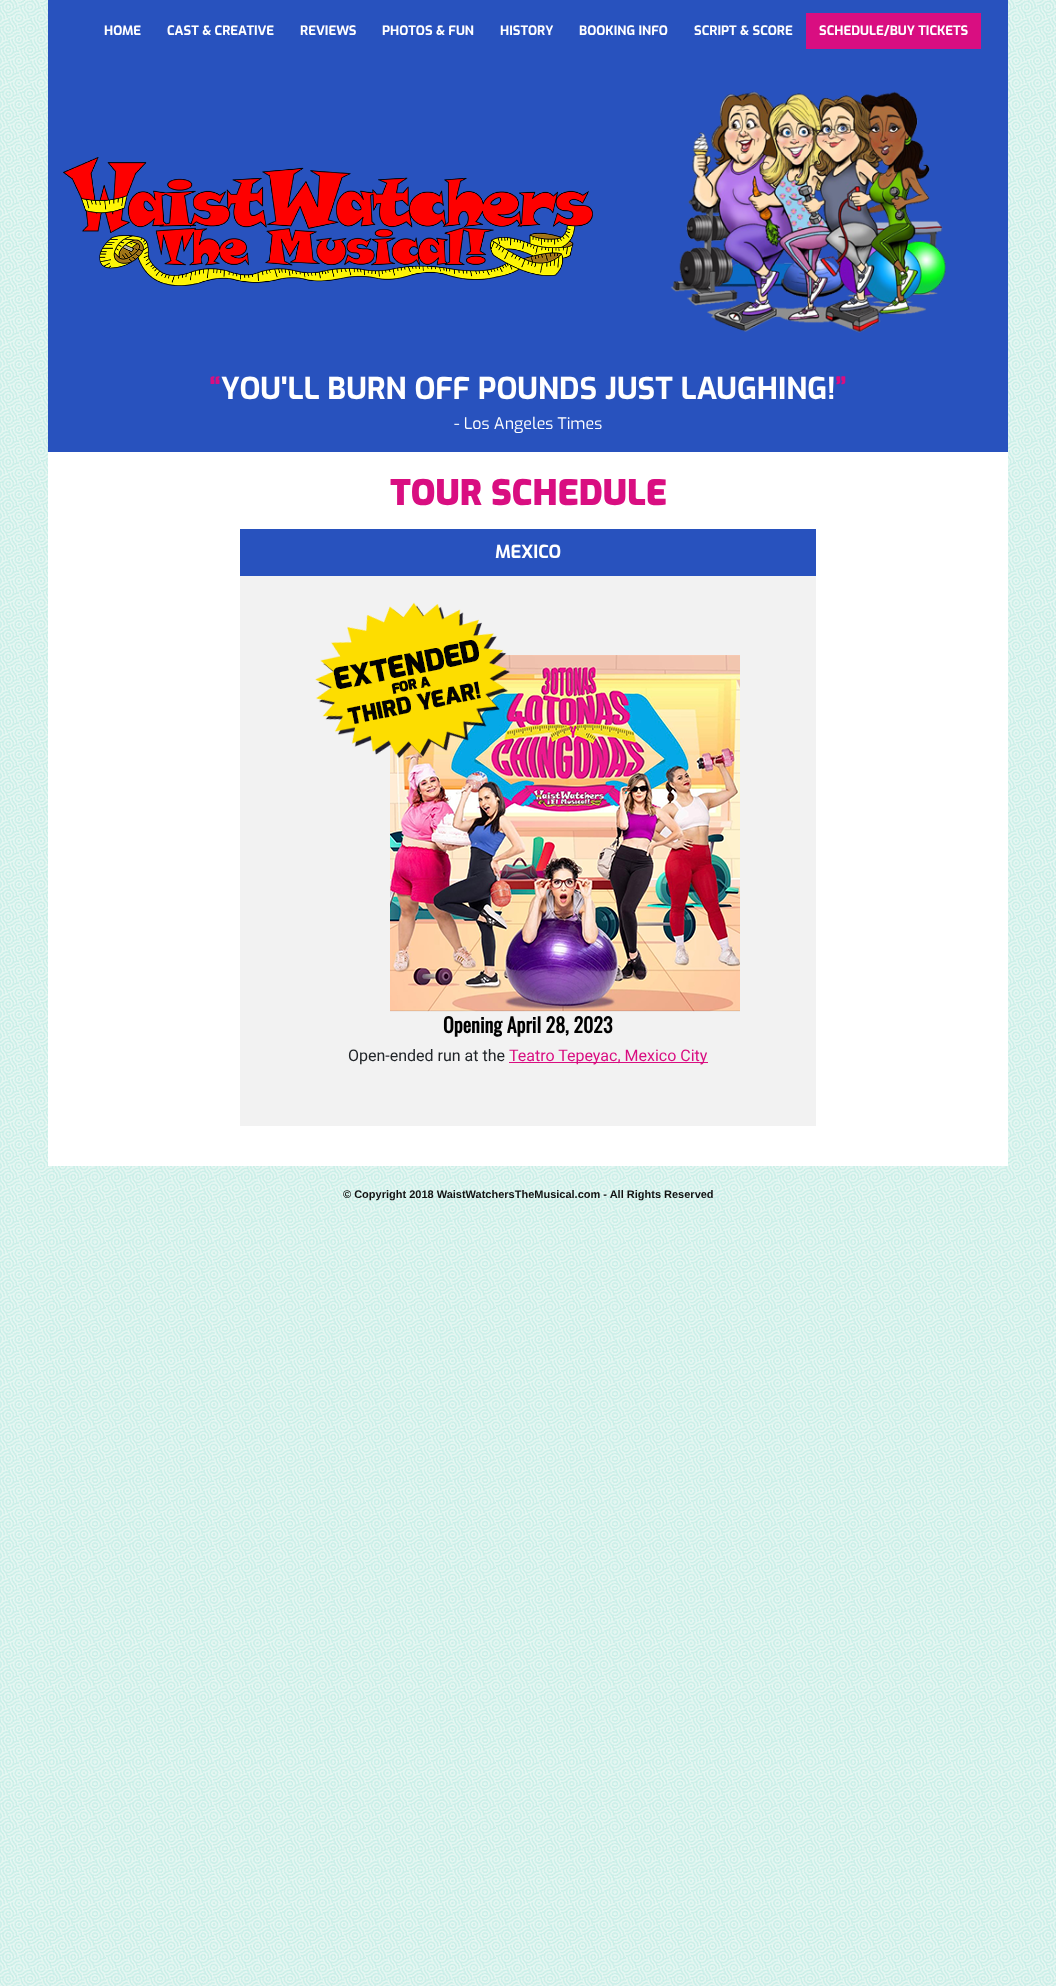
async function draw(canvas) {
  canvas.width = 1056;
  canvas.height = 1986;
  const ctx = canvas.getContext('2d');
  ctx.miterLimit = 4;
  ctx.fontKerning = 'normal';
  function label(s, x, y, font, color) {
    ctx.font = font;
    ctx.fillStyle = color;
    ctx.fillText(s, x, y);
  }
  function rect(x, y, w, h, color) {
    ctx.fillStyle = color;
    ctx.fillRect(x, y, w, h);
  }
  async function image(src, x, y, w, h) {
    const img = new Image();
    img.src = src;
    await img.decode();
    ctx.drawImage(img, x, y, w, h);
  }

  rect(0, 0, 1056, 1986, '#fff');
  await image('assets/img1.png', 0, 0, 1056, 1986);
  rect(48, 0, 960, 452, '#2852be');
  label('HOME', 104, 35, 'bold 13px Exo', '#fff');
  label('CAST & CREATIVE', 167, 35, 'bold 13px Exo', '#fff');
  label('REVIEWS', 300, 35, 'bold 13px Exo', '#fff');
  label('PHOTOS & FUN', 382, 35, 'bold 13px Exo', '#fff');
  label('HISTORY', 500, 35, 'bold 13px Exo', '#fff');
  label('BOOKING INFO', 579, 35, 'bold 13px Exo', '#fff');
  label('SCRIPT & SCORE', 694, 35, 'bold 13px Exo', '#fff');
  rect(806, 13, 175, 36, '#d90e81');
  label('SCHEDULE/BUY TICKETS', 819, 35, 'bold 13px Exo', '#fff');
  await image('assets/img2.png', 63, 157, 530, 129);
  await image('assets/img3.png', 670, 91, 276, 242);
  label('“', 209, 399, 'bold 30px Exo', '#d90e81');
  label('YOU\'LL BURN OFF POUNDS JUST LAUGHING!', 221, 399, 'bold 30px Exo', '#fff');
  label('”', 835, 399, 'bold 30px Exo', '#d90e81');
  label('- Los Angeles Times', 454, 429, '16px Exo', '#fff');
  rect(48, 452, 960, 714, '#fff');
  label('TOUR SCHEDULE', 390, 505, '900 35px Exo', '#d90e81');
  rect(240, 576, 576, 550, '#f2f2f2');
  rect(240, 529, 576, 47, '#2852be');
  label('MEXICO', 495, 558, 'bold 18px Exo', '#fff');
  await image('assets/img4.png', 315, 602, 425, 410);
  label('Opening April 28, 2023', 443, 1033, 'bold 20px Oswald', '#000');
  label('Open-ended run at the', 348, 1061, '16px Roboto', '#212529');
  rect(509, 1062, 199, 1, '#d90e81');
  label('Teatro Tepeyac, Mexico City', 509, 1061, '16px Roboto', '#d90e81');
  label('© Copyright 2018 WaistWatchersTheMusical.com - All Rights Reserved', 343, 1198, 'bold 11px Liberation Sans', '#111');
}

draw(document.querySelector('canvas'));
